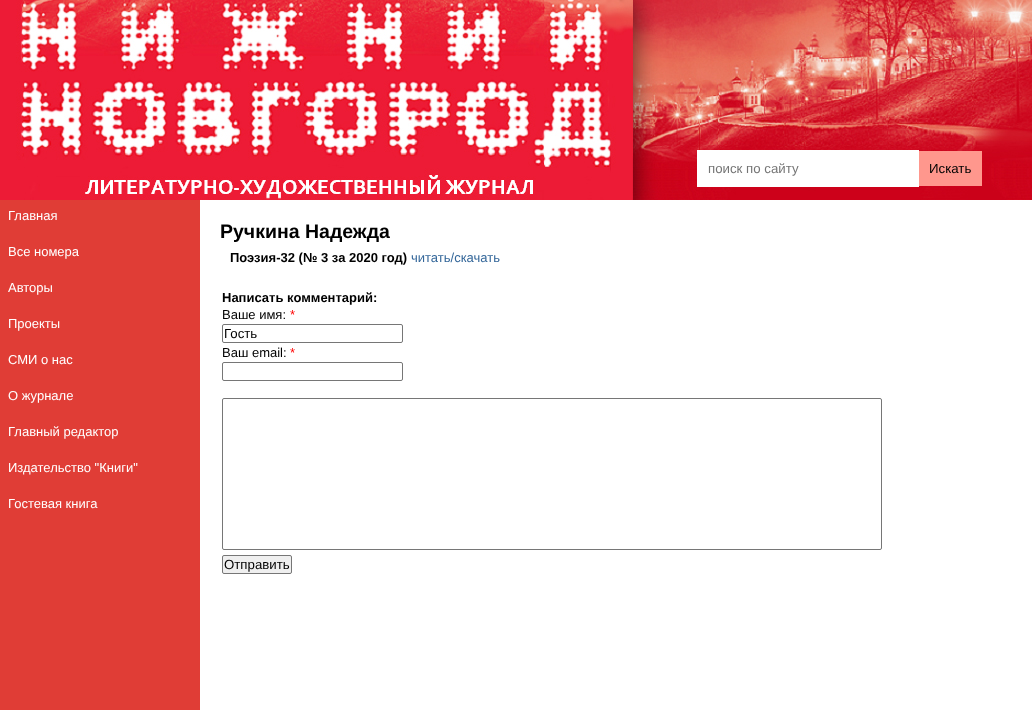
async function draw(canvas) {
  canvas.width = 1032;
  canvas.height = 710;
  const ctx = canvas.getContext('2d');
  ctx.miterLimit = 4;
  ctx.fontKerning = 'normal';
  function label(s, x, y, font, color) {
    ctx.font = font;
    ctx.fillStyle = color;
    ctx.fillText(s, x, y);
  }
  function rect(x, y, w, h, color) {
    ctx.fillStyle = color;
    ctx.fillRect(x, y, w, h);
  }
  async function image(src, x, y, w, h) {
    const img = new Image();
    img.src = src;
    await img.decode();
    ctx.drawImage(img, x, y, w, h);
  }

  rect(0, 0, 1032, 710, '#fff');
  await image('assets/img1.png', 0, 0, 1032, 200);
  rect(697, 150, 222, 37, '#fff');
  label('поиск по сайту', 708, 173, '13.25px Liberation Sans', '#757575');
  rect(919, 151, 63, 35, '#ff978d');
  label('Искать', 929, 173, '13.25px Liberation Sans', '#000');
  rect(0, 200, 200, 510, '#e03d36');
  label('Главная', 8, 220, '13px Liberation Sans', '#fff');
  label('Все номера', 8, 256, '13px Liberation Sans', '#fff');
  label('Авторы', 8, 292, '13px Liberation Sans', '#fff');
  label('Проекты', 8, 328, '13px Liberation Sans', '#fff');
  label('СМИ о нас', 8, 364, '13px Liberation Sans', '#fff');
  label('О журнале', 8, 400, '13px Liberation Sans', '#fff');
  label('Главный редактор', 8, 436, '13px Liberation Sans', '#fff');
  label('Издательство "Книги"', 8, 472, '13px Liberation Sans', '#fff');
  label('Гостевая книга', 8, 508, '13px Liberation Sans', '#fff');
  label('Ручкина Надежда', 220, 238, 'bold 19.5px Liberation Sans', '#000');
  label('Поэзия-32 (№ 3 за 2020 год)', 230, 262, 'bold 13px Liberation Sans', '#000');
  label('читать/скачать', 411, 262, '13px Liberation Sans', '#369');
  label('Написать комментарий:', 222, 302, 'bold 13px Liberation Sans', '#000');
  label('Ваше имя:', 222, 319, '13px Liberation Sans', '#000');
  label('*', 290, 319, '13px Liberation Sans', '#f00');
  ctx.beginPath();
  ctx.roundRect(222.5, 324.5, 180, 18, 1.5);
  ctx.strokeStyle = '#767676';
  ctx.stroke();
  label('Гость', 224, 338, '13.25px Liberation Sans', '#000');
  label('Ваш email:', 222, 357, '13px Liberation Sans', '#000');
  label('*', 290, 357, '13px Liberation Sans', '#f00');
  ctx.beginPath();
  ctx.roundRect(222.5, 362.5, 180, 18, 1.5);
  ctx.stroke();
  ctx.beginPath();
  ctx.roundRect(222.5, 398.5, 659, 151, 1.5);
  ctx.stroke();
  ctx.fillStyle = '#efefef';
  ctx.beginPath();
  ctx.roundRect(222.5, 555.5, 69, 18, 1.5);
  ctx.fill();
  ctx.stroke();
  label('Отправить', 224, 569, '13.25px Liberation Sans', '#000');
}

draw(document.querySelector('canvas'));
